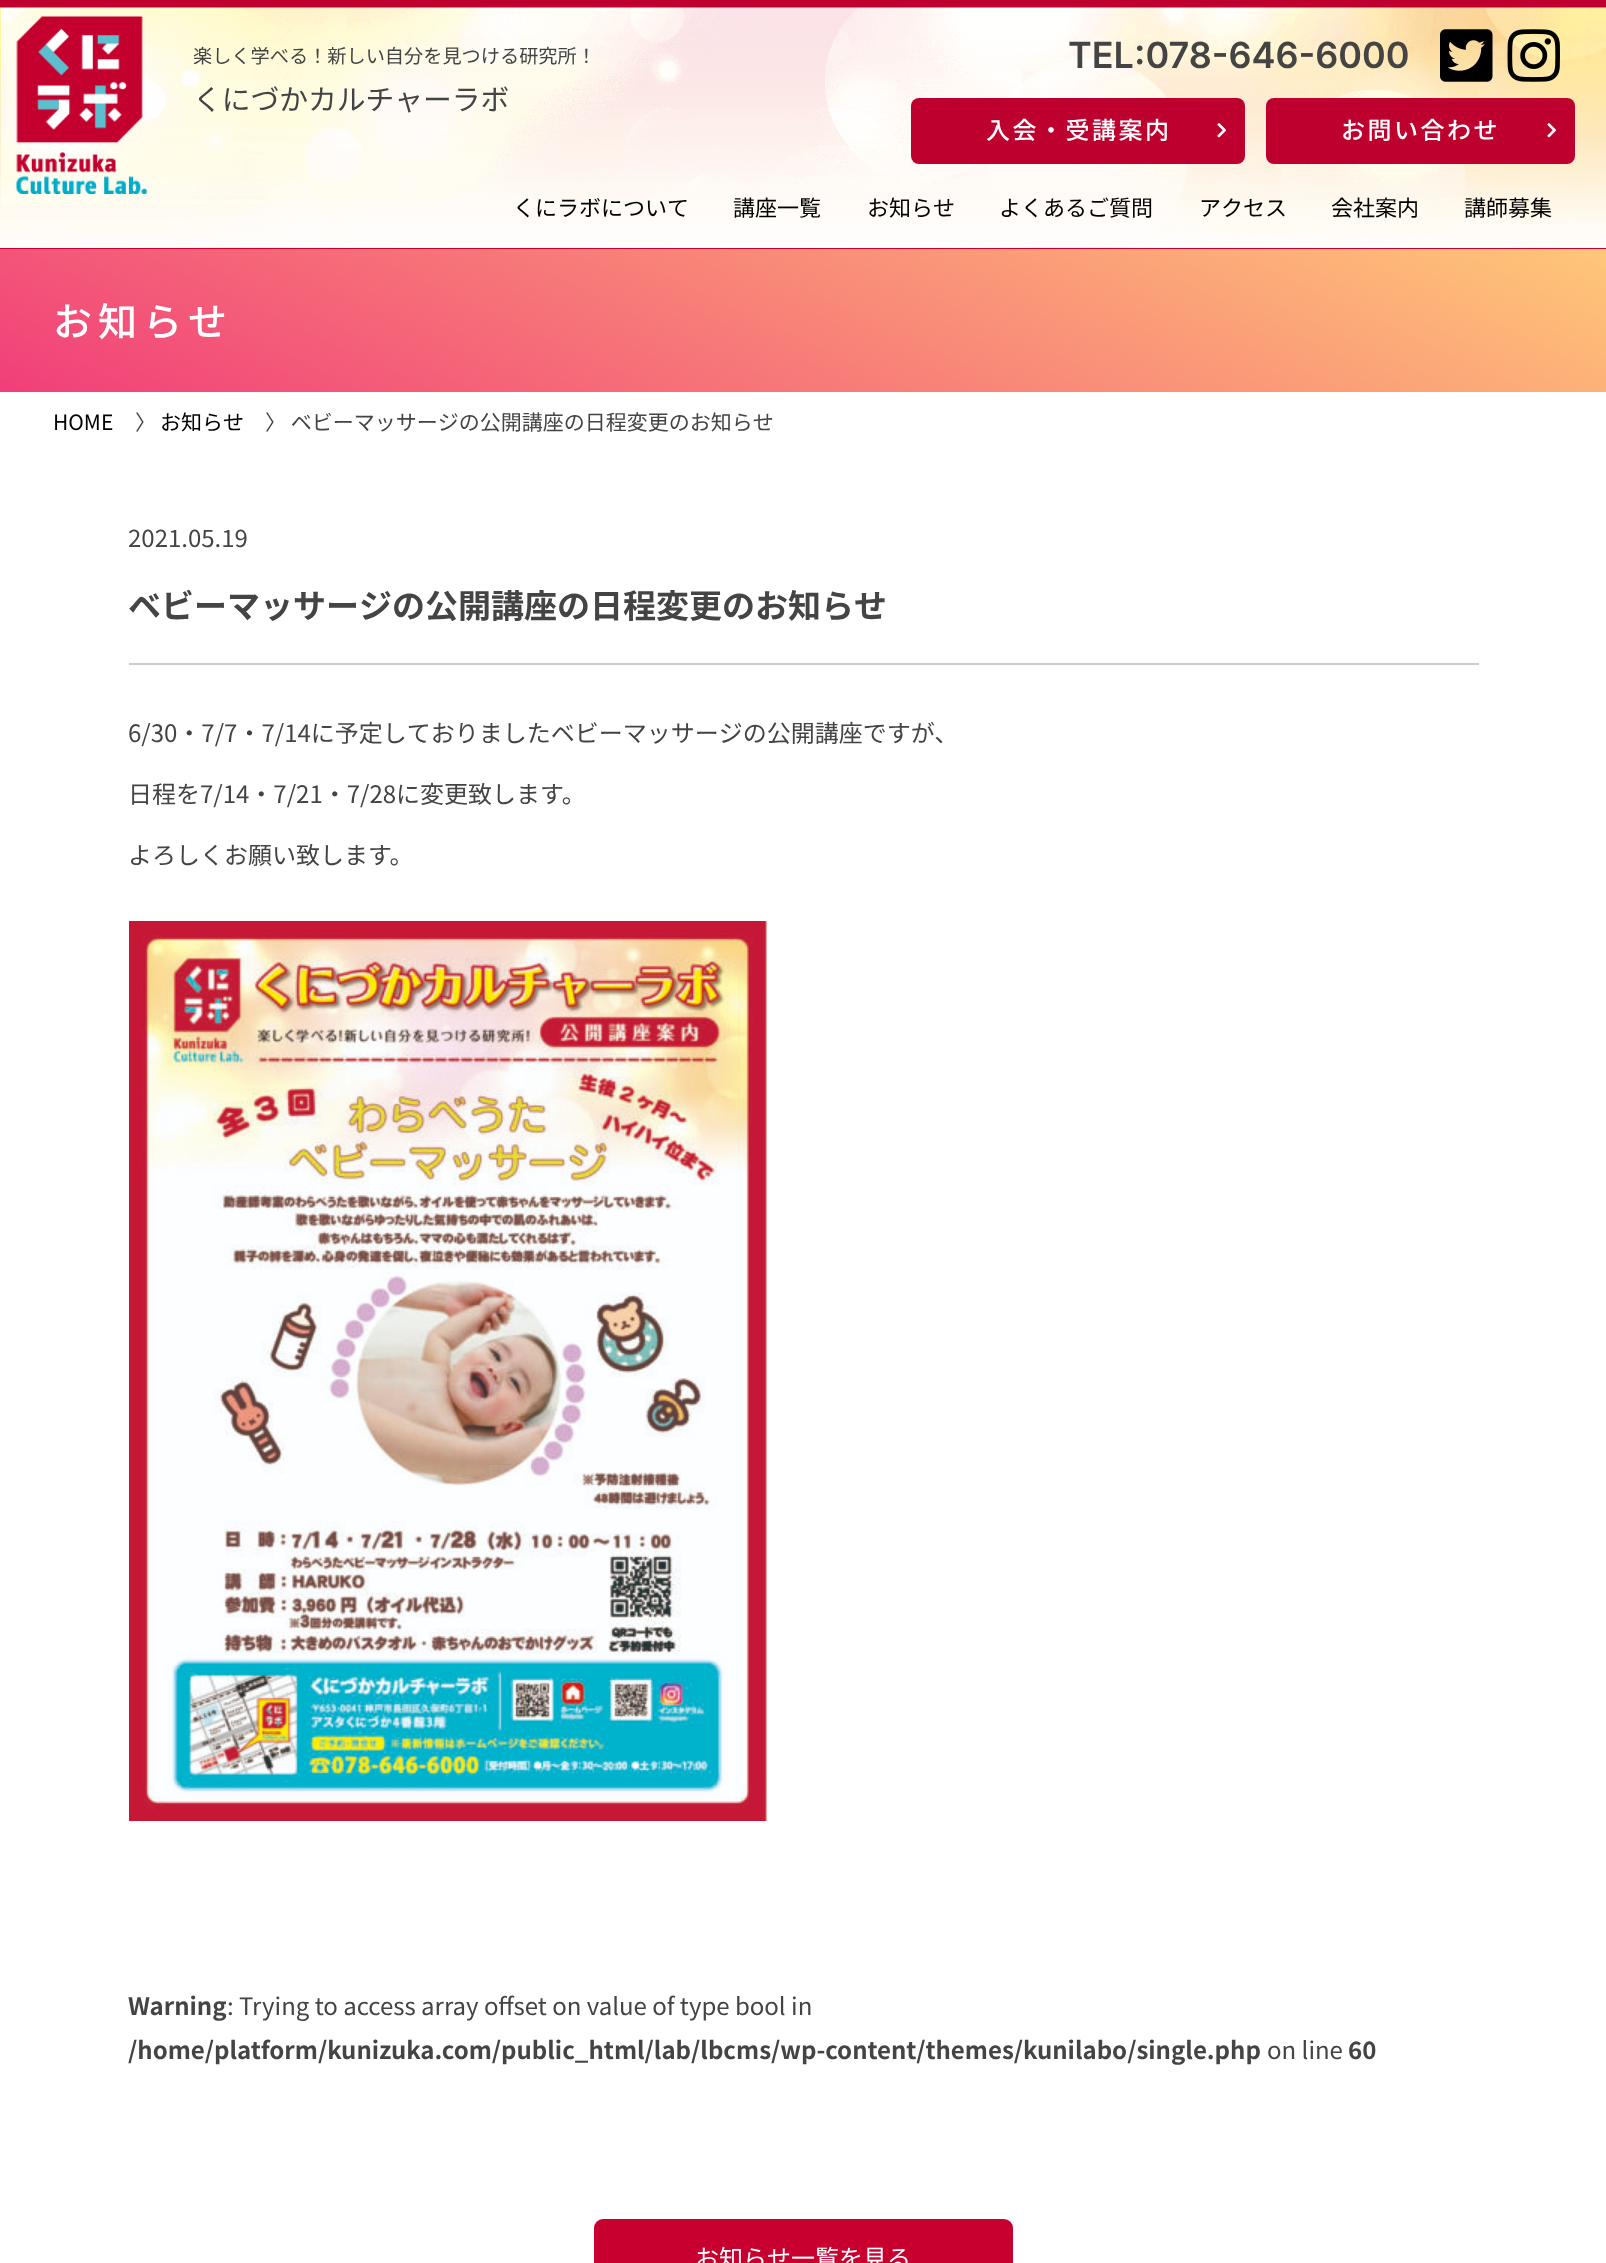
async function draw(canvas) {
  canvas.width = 1606;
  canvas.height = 2263;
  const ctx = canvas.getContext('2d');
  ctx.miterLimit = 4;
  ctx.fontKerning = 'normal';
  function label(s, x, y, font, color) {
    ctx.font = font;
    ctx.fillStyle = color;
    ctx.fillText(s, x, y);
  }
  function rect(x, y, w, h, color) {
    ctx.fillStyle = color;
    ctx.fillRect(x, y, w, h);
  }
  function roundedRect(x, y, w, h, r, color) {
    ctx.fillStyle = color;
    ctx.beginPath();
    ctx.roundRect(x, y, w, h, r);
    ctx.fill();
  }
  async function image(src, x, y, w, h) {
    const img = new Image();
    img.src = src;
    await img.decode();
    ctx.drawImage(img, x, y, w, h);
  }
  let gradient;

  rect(0, 0, 1606, 2263, '#fff');
  rect(0, 0, 1606, 8, '#be002e');
  await image('assets/img1.png', 0, 7, 1606, 241);
  rect(0, 248, 1606, 1, '#c7002f');
  await image('assets/img2.png', 16, 16, 132, 178);
  label('楽しく学べる！新しい自分を見つける研究所！', 193, 63, '19.2px Noto Sans JP', '#444');
  label('くにづかカルチャーラボ', 193, 110, '28.75px Noto Sans JP', '#444');
  label('TEL:078-646-6000', 1068, 68, '600 36px Inter', '#444');
  await image('assets/img3.png', 1440, 29, 53, 53);
  await image('assets/img4.png', 1507, 29, 53, 53);
  roundedRect(911, 98, 334, 66, 8, '#be002e');
  ctx.letterSpacing = '2.5px';
  label('入会・受講案内', 986, 139, '500 24px Noto Sans JP', '#fff');
  await image('assets/img5.png', 1217, 123, 10, 15);
  roundedRect(1266, 98, 309, 66, 8, '#be002e');
  label('お問い合わせ', 1341, 139, '500 24px Noto Sans JP', '#fff');
  await image('assets/img5.png', 1547, 123, 10, 15);
  ctx.letterSpacing = '0px';
  label('くにラボについて', 513, 216, '22px Noto Sans JP', '#000');
  label('講座一覧', 733, 216, '22px Noto Sans JP', '#000');
  label('お知らせ', 867, 216, '22px Noto Sans JP', '#000');
  label('よくあるご質問', 999, 216, '22px Noto Sans JP', '#000');
  label('アクセス', 1199, 216, '22px Noto Sans JP', '#000');
  label('会社案内', 1331, 216, '22px Noto Sans JP', '#000');
  label('講師募集', 1464, 216, '22px Noto Sans JP', '#000');
  gradient = ctx.createLinearGradient(632, 686, 974, -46);
  gradient.addColorStop(0, '#f13f79');
  gradient.addColorStop(1, '#ffc778');
  ctx.fillStyle = gradient;
  ctx.fillRect(0, 249, 1606, 143);
  ctx.letterSpacing = '6px';
  label('お知らせ', 53, 336, '500 39px Noto Sans JP', '#fff');
  ctx.letterSpacing = '0px';
  label('HOME', 53, 430, '21px Noto Sans JP', '#000');
  label('〉', 135, 430, '21px Noto Sans JP', '#444');
  label('お知らせ', 160, 430, '21px Noto Sans JP', '#000');
  label('〉 ベビーマッサージの公開講座の日程変更のお知らせ', 265, 430, '21px Noto Sans JP', '#444');
  label('2021.05.19', 128, 547, '24px Noto Sans JP', '#444');
  rect(129, 663, 1350, 2, '#ccc');
  label('ベビーマッサージの公開講座の日程変更のお知らせ', 128, 618, 'bold 33px Noto Sans JP', '#444');
  label('6/30・7/7・7/14に予定しておりましたベビーマッサージの公開講座ですが、', 128, 742, '24px Noto Sans JP', '#444');
  label('日程を7/14・7/21・7/28に変更致します。', 128, 803, '24px Noto Sans JP', '#444');
  label('よろしくお願い致します。', 128, 864, '24px Noto Sans JP', '#444');
  await image('assets/img6.png', 129, 921, 638, 900);
  label('Warning', 128, 2015, 'bold 24px Noto Sans JP', '#444');
  label(': Trying to access array offset on value of type bool in', 227, 2015, '24px Noto Sans JP', '#444');
  label('/home/platform/kunizuka.com/public_html/lab/lbcms/wp-content/themes/kunilabo/single.php', 128, 2059, 'bold 24px Noto Sans JP', '#444');
  label('on line', 1267, 2059, '24px Noto Sans JP', '#444');
  label('60', 1348, 2059, 'bold 24px Noto Sans JP', '#444');
  roundedRect(594, 2219, 419, 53, 9, '#c70030');
  label('お知らせ一覧を見る', 695, 2267, '24px Noto Sans JP', '#fff');
}

draw(document.querySelector('canvas'));
